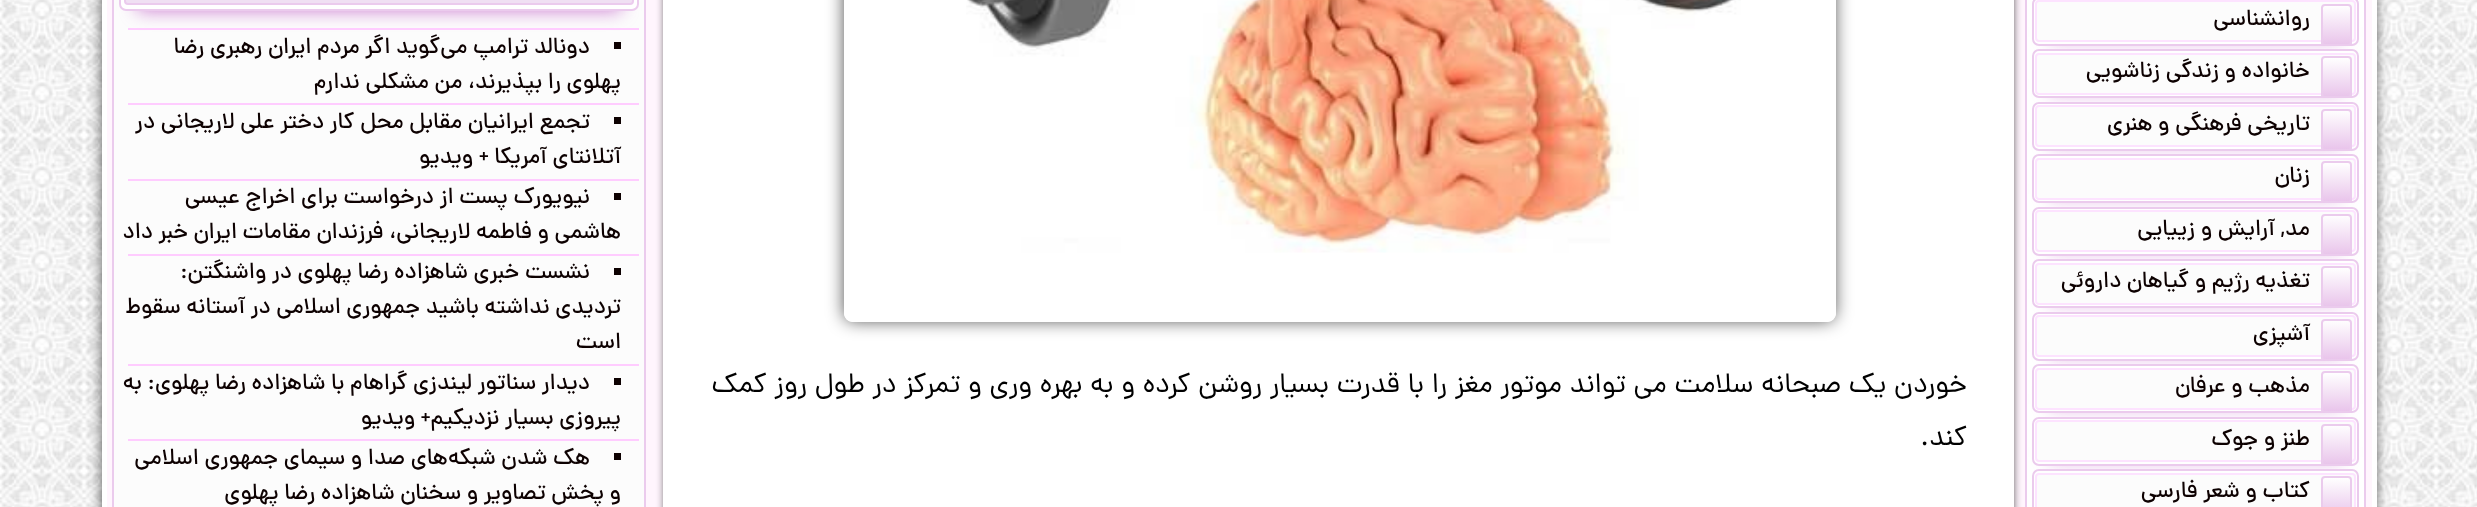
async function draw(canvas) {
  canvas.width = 2477;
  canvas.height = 507;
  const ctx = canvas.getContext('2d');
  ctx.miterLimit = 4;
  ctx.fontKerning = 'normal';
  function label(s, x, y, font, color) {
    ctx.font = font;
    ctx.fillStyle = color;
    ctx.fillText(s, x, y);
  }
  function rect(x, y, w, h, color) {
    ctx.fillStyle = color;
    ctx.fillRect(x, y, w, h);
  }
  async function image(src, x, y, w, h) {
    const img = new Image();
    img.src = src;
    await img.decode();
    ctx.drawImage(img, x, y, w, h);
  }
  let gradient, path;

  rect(0, 0, 2477, 507, '#fff');
  await image('assets/img1.png', 0, 0, 2477, 507);
  ctx.fillStyle = '#000000bf';
  ctx.filter = 'blur(7px)';
  ctx.beginPath();
  ctx.roundRect(103, -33, 2272, 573, 12);
  ctx.fill();
  ctx.filter = 'none';
  ctx.fillStyle = '#fff5fd';
  ctx.beginPath();
  ctx.rect(104.5, -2.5, 2270, 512);
  ctx.fill();
  ctx.strokeStyle = '#fff';
  ctx.lineWidth = 5;
  ctx.stroke();
  ctx.fillStyle = '#000000bf';
  ctx.filter = 'blur(4.5px)';
  ctx.beginPath();
  ctx.roundRect(665, -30, 1348, 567, 16);
  ctx.fill();
  ctx.filter = 'none';
  ctx.fillStyle = '#fff';
  ctx.beginPath();
  ctx.rect(2026, -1, 339, 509);
  ctx.fill();
  ctx.strokeStyle = '#ebcbed';
  ctx.lineWidth = 2;
  ctx.stroke();
  ctx.fillStyle = '#a205ac80';
  ctx.filter = 'blur(9px)';
  ctx.beginPath();
  ctx.rect(2049, 25, 293, 14);
  ctx.fill();
  ctx.filter = 'none';
  ctx.fillStyle = '#fff';
  ctx.beginPath();
  ctx.roundRect(2033, -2, 325, 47, 6);
  ctx.fill();
  ctx.stroke();
  ctx.fillStyle = '#fcfcfc';
  ctx.beginPath();
  ctx.roundRect(2036, 1, 319, 40, 3);
  ctx.fill();
  ctx.strokeStyle = '#fde3ff';
  ctx.stroke();
  ctx.save();
  ctx.beginPath();
  ctx.roundRect(2321, 4, 31, 42, 4);
  ctx.clip();
  gradient = ctx.createLinearGradient(2336, 5.2, 2336, 44);
  gradient.addColorStop(0, '#fff');
  gradient.addColorStop(1, '#e9c5eb');
  ctx.fillStyle = gradient;
  ctx.fillRect(2321, 5, 31, 39);
  ctx.restore();
  ctx.beginPath();
  ctx.roundRect(2322, 5, 29, 40, 3);
  ctx.strokeStyle = '#ebcbed';
  ctx.stroke();
  ctx.direction = 'rtl';
  label('روانشناسی', 2310, 25, '500 22.75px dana', '#0d0101');
  ctx.fillStyle = '#a205ac80';
  ctx.filter = 'blur(9px)';
  ctx.beginPath();
  ctx.rect(2049, 77, 293, 14);
  ctx.fill();
  ctx.filter = 'none';
  ctx.fillStyle = '#fff';
  ctx.beginPath();
  ctx.roundRect(2033, 50, 325, 47, 6);
  ctx.fill();
  ctx.stroke();
  ctx.fillStyle = '#fcfcfc';
  ctx.beginPath();
  ctx.roundRect(2036, 54, 319, 40, 3);
  ctx.fill();
  ctx.strokeStyle = '#fde3ff';
  ctx.stroke();
  ctx.save();
  ctx.beginPath();
  ctx.roundRect(2321, 56, 31, 42, 4);
  ctx.clip();
  gradient = ctx.createLinearGradient(2336, 58, 2336, 96);
  gradient.addColorStop(0, '#fff');
  gradient.addColorStop(1, '#e9c5eb');
  ctx.fillStyle = gradient;
  ctx.fillRect(2321, 58, 31, 38);
  ctx.restore();
  ctx.beginPath();
  ctx.roundRect(2322, 57, 29, 40, 3);
  ctx.strokeStyle = '#ebcbed';
  ctx.stroke();
  label('خانواده و زندگی زناشویی', 2310, 77, '500 22.75px dana', '#0d0101');
  ctx.fillStyle = '#a205ac80';
  ctx.filter = 'blur(9px)';
  ctx.beginPath();
  ctx.rect(2049, 130, 293, 14);
  ctx.fill();
  ctx.filter = 'none';
  ctx.fillStyle = '#fff';
  ctx.beginPath();
  ctx.roundRect(2033, 103, 325, 47, 6);
  ctx.fill();
  ctx.stroke();
  ctx.fillStyle = '#fcfcfc';
  ctx.beginPath();
  ctx.roundRect(2036, 106, 319, 40, 3);
  ctx.fill();
  ctx.strokeStyle = '#fde3ff';
  ctx.stroke();
  ctx.save();
  ctx.beginPath();
  ctx.roundRect(2321, 109, 31, 42, 4);
  ctx.clip();
  gradient = ctx.createLinearGradient(2336, 110, 2336, 149);
  gradient.addColorStop(0, '#fff');
  gradient.addColorStop(1, '#e9c5eb');
  ctx.fillStyle = gradient;
  ctx.fillRect(2321, 110, 31, 39);
  ctx.restore();
  ctx.beginPath();
  ctx.roundRect(2322, 110, 29, 40, 3);
  ctx.strokeStyle = '#ebcbed';
  ctx.stroke();
  label('تاریخی فرهنگی و هنری', 2310, 130, '500 22.75px dana', '#0d0101');
  ctx.fillStyle = '#a205ac80';
  ctx.filter = 'blur(9px)';
  ctx.beginPath();
  ctx.rect(2049, 182, 293, 14);
  ctx.fill();
  ctx.filter = 'none';
  ctx.fillStyle = '#fff';
  ctx.beginPath();
  ctx.roundRect(2033, 155, 325, 47, 6);
  ctx.fill();
  ctx.stroke();
  ctx.fillStyle = '#fcfcfc';
  ctx.beginPath();
  ctx.roundRect(2036, 159, 319, 40, 3);
  ctx.fill();
  ctx.strokeStyle = '#fde3ff';
  ctx.stroke();
  ctx.save();
  ctx.beginPath();
  ctx.roundRect(2321, 161, 31, 42, 4);
  ctx.clip();
  gradient = ctx.createLinearGradient(2336, 163, 2336, 201);
  gradient.addColorStop(0, '#fff');
  gradient.addColorStop(1, '#e9c5eb');
  ctx.fillStyle = gradient;
  ctx.fillRect(2321, 163, 31, 38);
  ctx.restore();
  ctx.beginPath();
  ctx.roundRect(2322, 162, 29, 40, 3);
  ctx.strokeStyle = '#ebcbed';
  ctx.stroke();
  label('زنان', 2310, 182, '500 22.75px dana', '#0d0101');
  ctx.fillStyle = '#a205ac80';
  ctx.filter = 'blur(9px)';
  ctx.beginPath();
  ctx.rect(2049, 235, 293, 14);
  ctx.fill();
  ctx.filter = 'none';
  ctx.fillStyle = '#fff';
  ctx.beginPath();
  ctx.roundRect(2033, 208, 325, 47, 6);
  ctx.fill();
  ctx.stroke();
  ctx.fillStyle = '#fcfcfc';
  ctx.beginPath();
  ctx.roundRect(2036, 211, 319, 40, 3);
  ctx.fill();
  ctx.strokeStyle = '#fde3ff';
  ctx.stroke();
  ctx.save();
  ctx.beginPath();
  ctx.roundRect(2321, 214, 31, 42, 4);
  ctx.clip();
  gradient = ctx.createLinearGradient(2336, 215, 2336, 254);
  gradient.addColorStop(0, '#fff');
  gradient.addColorStop(1, '#e9c5eb');
  ctx.fillStyle = gradient;
  ctx.fillRect(2321, 215, 31, 39);
  ctx.restore();
  ctx.beginPath();
  ctx.roundRect(2322, 215, 29, 40, 3);
  ctx.strokeStyle = '#ebcbed';
  ctx.stroke();
  label('مد, آرایش و زییایی', 2310, 235, '500 22.75px dana', '#0d0101');
  ctx.fillStyle = '#a205ac80';
  ctx.filter = 'blur(9px)';
  ctx.beginPath();
  ctx.rect(2049, 287, 293, 14);
  ctx.fill();
  ctx.filter = 'none';
  ctx.fillStyle = '#fff';
  ctx.beginPath();
  ctx.roundRect(2033, 260, 325, 47, 6);
  ctx.fill();
  ctx.stroke();
  ctx.fillStyle = '#fcfcfc';
  ctx.beginPath();
  ctx.roundRect(2036, 264, 319, 40, 3);
  ctx.fill();
  ctx.strokeStyle = '#fde3ff';
  ctx.stroke();
  ctx.save();
  ctx.beginPath();
  ctx.roundRect(2321, 266, 31, 42, 4);
  ctx.clip();
  gradient = ctx.createLinearGradient(2336, 268, 2336, 306);
  gradient.addColorStop(0, '#fff');
  gradient.addColorStop(1, '#e9c5eb');
  ctx.fillStyle = gradient;
  ctx.fillRect(2321, 268, 31, 38);
  ctx.restore();
  ctx.beginPath();
  ctx.roundRect(2322, 267, 29, 40, 3);
  ctx.strokeStyle = '#ebcbed';
  ctx.stroke();
  label('تغذیه رژیم و گیاهان داروئی', 2310, 287, '500 22.75px dana', '#0d0101');
  ctx.fillStyle = '#a205ac80';
  ctx.filter = 'blur(9px)';
  ctx.beginPath();
  ctx.rect(2049, 340, 293, 14);
  ctx.fill();
  ctx.filter = 'none';
  ctx.fillStyle = '#fff';
  ctx.beginPath();
  ctx.roundRect(2033, 313, 325, 47, 6);
  ctx.fill();
  ctx.stroke();
  ctx.fillStyle = '#fcfcfc';
  ctx.beginPath();
  ctx.roundRect(2036, 316, 319, 40, 3);
  ctx.fill();
  ctx.strokeStyle = '#fde3ff';
  ctx.stroke();
  ctx.save();
  ctx.beginPath();
  ctx.roundRect(2321, 319, 31, 42, 4);
  ctx.clip();
  gradient = ctx.createLinearGradient(2336, 320, 2336, 359);
  gradient.addColorStop(0, '#fff');
  gradient.addColorStop(1, '#e9c5eb');
  ctx.fillStyle = gradient;
  ctx.fillRect(2321, 320, 31, 39);
  ctx.restore();
  ctx.beginPath();
  ctx.roundRect(2322, 320, 29, 40, 3);
  ctx.strokeStyle = '#ebcbed';
  ctx.stroke();
  label('آشپزی', 2310, 340, '500 22.75px dana', '#0d0101');
  ctx.fillStyle = '#a205ac80';
  ctx.filter = 'blur(9px)';
  ctx.beginPath();
  ctx.rect(2049, 392, 293, 14);
  ctx.fill();
  ctx.filter = 'none';
  ctx.fillStyle = '#fff';
  ctx.beginPath();
  ctx.roundRect(2033, 365, 325, 47, 6);
  ctx.fill();
  ctx.stroke();
  ctx.fillStyle = '#fcfcfc';
  ctx.beginPath();
  ctx.roundRect(2036, 369, 319, 40, 3);
  ctx.fill();
  ctx.strokeStyle = '#fde3ff';
  ctx.stroke();
  ctx.save();
  ctx.beginPath();
  ctx.roundRect(2321, 371, 31, 42, 4);
  ctx.clip();
  gradient = ctx.createLinearGradient(2336, 373, 2336, 411);
  gradient.addColorStop(0, '#fff');
  gradient.addColorStop(1, '#e9c5eb');
  ctx.fillStyle = gradient;
  ctx.fillRect(2321, 373, 31, 38);
  ctx.restore();
  ctx.beginPath();
  ctx.roundRect(2322, 372, 29, 40, 3);
  ctx.strokeStyle = '#ebcbed';
  ctx.stroke();
  label('مذهب و عرفان', 2310, 392, '500 22.75px dana', '#0d0101');
  ctx.fillStyle = '#a205ac80';
  ctx.filter = 'blur(9px)';
  ctx.beginPath();
  ctx.rect(2049, 445, 293, 14);
  ctx.fill();
  ctx.filter = 'none';
  ctx.fillStyle = '#fff';
  ctx.beginPath();
  ctx.roundRect(2033, 418, 325, 47, 6);
  ctx.fill();
  ctx.stroke();
  ctx.fillStyle = '#fcfcfc';
  ctx.beginPath();
  ctx.roundRect(2036, 421, 319, 40, 3);
  ctx.fill();
  ctx.strokeStyle = '#fde3ff';
  ctx.stroke();
  ctx.save();
  ctx.beginPath();
  ctx.roundRect(2321, 424, 31, 42, 4);
  ctx.clip();
  gradient = ctx.createLinearGradient(2336, 425, 2336, 464);
  gradient.addColorStop(0, '#fff');
  gradient.addColorStop(1, '#e9c5eb');
  ctx.fillStyle = gradient;
  ctx.fillRect(2321, 425, 31, 39);
  ctx.restore();
  ctx.beginPath();
  ctx.roundRect(2322, 425, 29, 40, 3);
  ctx.strokeStyle = '#ebcbed';
  ctx.stroke();
  label('طنز و جوک', 2310, 445, '500 22.75px dana', '#0d0101');
  ctx.fillStyle = '#fff';
  ctx.beginPath();
  ctx.roundRect(2033, 470, 325, 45, 6);
  ctx.fill();
  ctx.stroke();
  ctx.fillStyle = '#fcfcfc';
  ctx.beginPath();
  ctx.roundRect(2036, 474, 319, 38, 3);
  ctx.fill();
  ctx.strokeStyle = '#fde3ff';
  ctx.stroke();
  gradient = ctx.createLinearGradient(2336, 478, 2336, 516);
  gradient.addColorStop(0, '#fff');
  gradient.addColorStop(1, '#e9c5eb');
  ctx.fillStyle = gradient;
  ctx.fillRect(2321, 478, 31, 29);
  ctx.beginPath();
  ctx.roundRect(2322, 477, 29, 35, 3);
  ctx.strokeStyle = '#ebcbed';
  ctx.stroke();
  label('کتاب و شعر فارسی', 2310, 497, '500 22.75px dana', '#0d0101');
  rect(663, 0, 1351, 507, '#fff');
  ctx.save();
  path = new Path2D('M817 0H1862V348H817ZM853-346H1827C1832-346 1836-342 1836-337V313C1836 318 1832 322 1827 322H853C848 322 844 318 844 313V-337C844-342 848-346 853-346Z');
  ctx.clip(path, 'evenodd');
  ctx.fillStyle = '#000000bf';
  ctx.filter = 'blur(9px)';
  ctx.beginPath();
  ctx.roundRect(845, -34, 989, 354, 7);
  ctx.fill();
  ctx.filter = 'none';
  ctx.restore();
  ctx.beginPath();
  ctx.roundRect(849.5, -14.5, 981, 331, 3.5);
  ctx.strokeStyle = '#fff';
  ctx.lineWidth = 11;
  ctx.stroke();
  await image('assets/img2.png', 966, 0, 775, 253);
  ctx.wordSpacing = '0.6px';
  label('خوردن یک صبحانه سلامت می تواند موتور مغز را با قدرت بسیار روشن کرده و به بهره وری و تمرکز در طول روز کمک', 1967, 392, '28px dana', '#000');
  ctx.wordSpacing = '0px';
  label('کند.', 1967, 445, '28px dana', '#000');
  ctx.fillStyle = '#fcfcfc';
  ctx.beginPath();
  ctx.rect(113, -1, 532, 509);
  ctx.fill();
  ctx.strokeStyle = '#ebcbed';
  ctx.lineWidth = 2;
  ctx.stroke();
  ctx.fillStyle = '#a205ac80';
  ctx.filter = 'blur(9px)';
  ctx.beginPath();
  ctx.rect(137, -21, 484, 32);
  ctx.fill();
  ctx.filter = 'none';
  ctx.fillStyle = '#fff';
  ctx.beginPath();
  ctx.roundRect(120, -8, 518, 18, 6);
  ctx.fill();
  ctx.stroke();
  ctx.fillStyle = '#f0e0f3';
  ctx.beginPath();
  ctx.roundRect(125, -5, 508, 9, 3);
  ctx.fill();
  ctx.stroke();
  rect(128, 28, 511, 2, '#fcf');
  rect(614, 42, 7, 7, '#0d0101');
  label('دونالد ترامپ می‌گوید اگر مردم ایران رهبری رضا', 590, 53, '500 22.75px dana', '#0d0101');
  label('پهلوی را بپذیرند، من مشکلی ندارم', 621, 88, '500 22.75px dana', '#0d0101');
  rect(128, 103, 511, 2, '#fcf');
  rect(614, 117, 7, 7, '#0d0101');
  label('تجمع ایرانیان مقابل محل کار دختر علی لاریجانی در', 590, 128, '500 22.75px dana', '#0d0101');
  label('آتلانتای آمریکا + ویدیو', 621, 163, '500 22.75px dana', '#0d0101');
  rect(128, 179, 511, 2, '#fcf');
  rect(614, 193, 7, 7, '#0d0101');
  label('نیویورک پست از', 590, 203, '500 22.75px dana', '#0d0101');
  label('درخواست برای اخراج عیسی', 434, 203, '500 22.75px dana', '#0d0101');
  label('هاشمی و فاطمه لاریجانی، فرزندان مقامات ایران خبر داد', 621, 238, '500 22.75px dana', '#0d0101');
  rect(128, 254, 511, 2, '#fcf');
  rect(614, 268, 7, 7, '#0d0101');
  label('نشست خبری شاهزاده رضا پهلوی در واشنگتن:', 590, 278, '500 22.75px dana', '#0d0101');
  label('تردیدی نداشته باشید جمهوری اسلامی در آستانه سقوط', 621, 313, '500 22.75px dana', '#0d0101');
  label('است', 621, 348, '500 22.75px dana', '#0d0101');
  rect(128, 364, 511, 2, '#fcf');
  rect(614, 378, 7, 7, '#0d0101');
  label('دیدار سناتور لیندزی گراهام با شاهزاده رضا پهلوی: به', 590, 389, '500 22.75px dana', '#0d0101');
  label('پیروزی بسیار نزدیکیم+ ویدیو', 621, 424, '500 22.75px dana', '#0d0101');
  rect(128, 439, 511, 2, '#fcf');
  rect(614, 453, 7, 7, '#0d0101');
  label('هک شدن شبکه‌های صدا و سیمای جمهوری اسلامی', 590, 464, '500 22.75px dana', '#0d0101');
  label('و پخش تصاویر و سخنان شاهزاده رضا پهلوی', 621, 499, '500 22.75px dana', '#0d0101');
}

draw(document.querySelector('canvas'));
